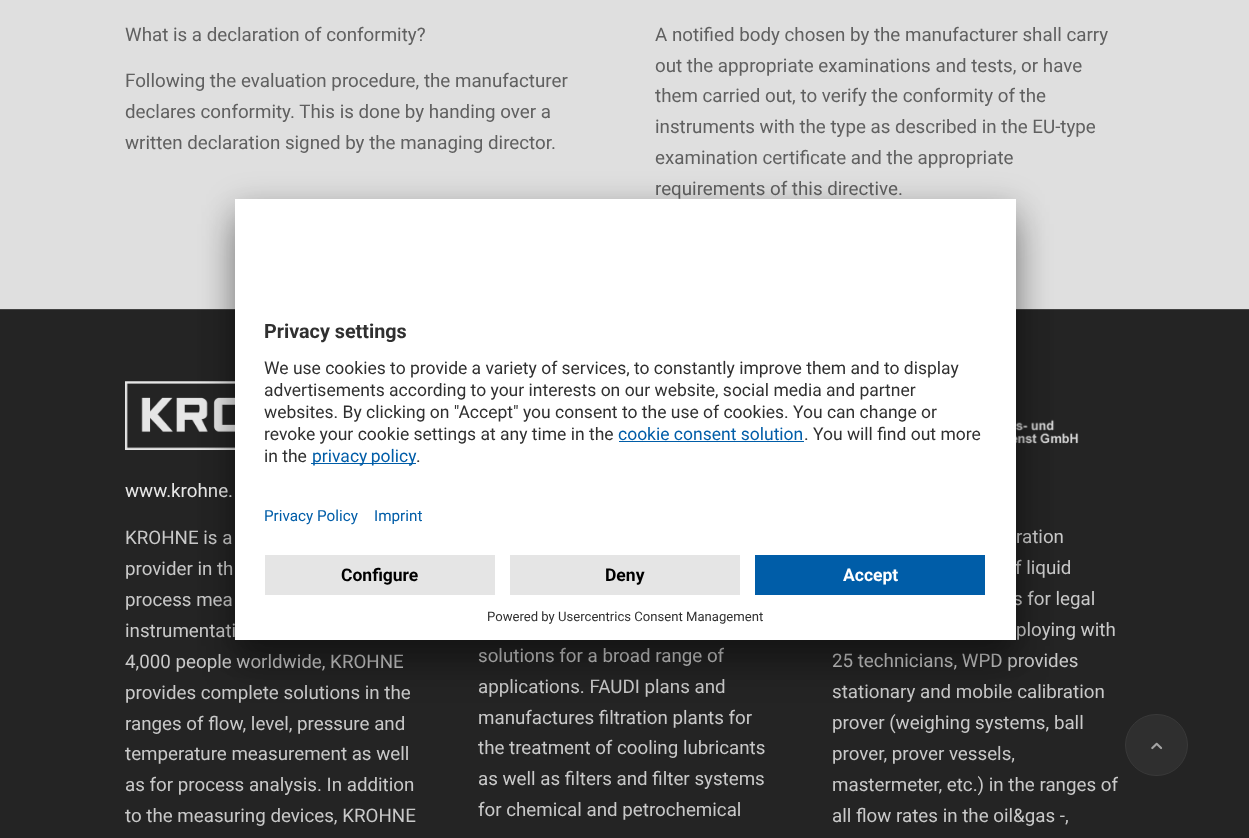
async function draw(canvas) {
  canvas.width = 1249;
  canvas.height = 838;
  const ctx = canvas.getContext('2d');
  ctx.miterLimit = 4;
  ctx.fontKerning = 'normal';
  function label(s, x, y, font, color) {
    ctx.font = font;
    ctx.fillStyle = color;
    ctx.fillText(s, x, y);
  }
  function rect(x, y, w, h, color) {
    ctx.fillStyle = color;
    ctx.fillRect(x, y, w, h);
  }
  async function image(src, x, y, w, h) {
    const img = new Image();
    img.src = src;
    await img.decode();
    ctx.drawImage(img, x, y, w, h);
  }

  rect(0, 0, 1249, 838, '#dfdfdf');
  label('What is a declaration of conformity?', 125, 41, '18.75px Roboto', '#606060');
  label('Following the evaluation procedure, the manufacturer', 125, 87, '18.75px Roboto', '#606060');
  label('declares conformity. This is done by handing over a', 125, 118, '18.75px Roboto', '#606060');
  label('written declaration signed by the managing director.', 125, 149, '18.75px Roboto', '#606060');
  label('A notified body chosen by the manufacturer shall carry', 655, 41, '18.75px Roboto', '#606060');
  label('out the appropriate examinations and tests, or have', 655, 72, '18.75px Roboto', '#606060');
  label('them carried out, to verify the conformity of the', 655, 102, '18.75px Roboto', '#606060');
  label('instruments with the type as described in the EU-type', 655, 133, '18.75px Roboto', '#606060');
  label('examination certificate and the appropriate', 655, 164, '18.75px Roboto', '#606060');
  label('requirements of this directive.', 655, 195, '18.75px Roboto', '#606060');
  rect(0, 310, 1249, 528, '#242424');
  rect(0, 309, 1249, 1, '#424242');
  await image('assets/img1.png', 125, 381, 110, 69);
  label('www.krohne.', 125, 497, '18.75px Roboto', '#e7e7e7');
  label('KROHNE is a', 125, 544, '18.75px Roboto', '#c9c9c9');
  label('provider in th', 125, 575, '18.75px Roboto', '#c9c9c9');
  label('process mea', 125, 606, '18.75px Roboto', '#c9c9c9');
  label('instrumentati', 125, 637, '18.75px Roboto', '#c9c9c9');
  label('4,000 people worldwide, KROHNE', 125, 668, '18.75px Roboto', '#c9c9c9');
  label('provides complete solutions in the', 125, 699, '18.75px Roboto', '#c9c9c9');
  label('ranges of flow, level, pressure and', 125, 730, '18.75px Roboto', '#c9c9c9');
  label('temperature measurement as well', 125, 760, '18.75px Roboto', '#c9c9c9');
  label('as for process analysis. In addition', 125, 791, '18.75px Roboto', '#c9c9c9');
  label('to the measuring devices, KROHNE', 125, 822, '18.75px Roboto', '#c9c9c9');
  label('solutions for a broad range of', 478, 662, '18.75px Roboto', '#c9c9c9');
  label('applications. FAUDI plans and', 478, 693, '18.75px Roboto', '#c9c9c9');
  label('manufactures filtration plants for', 478, 724, '18.75px Roboto', '#c9c9c9');
  label('the treatment of cooling lubricants', 478, 754, '18.75px Roboto', '#c9c9c9');
  label('as well as filters and filter systems', 478, 785, '18.75px Roboto', '#c9c9c9');
  label('for chemical and petrochemical', 478, 816, '18.75px Roboto', '#c9c9c9');
  await image('assets/img2.png', 1016, 419, 63, 25);
  label('ration', 1016, 543, '18.75px Roboto', '#c9c9c9');
  label('f liquid', 1015, 574, '18.75px Roboto', '#c9c9c9');
  label('s for legal', 1013, 605, '18.75px Roboto', '#c9c9c9');
  label('ploying with', 1016, 636, '18.75px Roboto', '#c9c9c9');
  label('25 technicians, WPD provides', 832, 667, '18.75px Roboto', '#c9c9c9');
  label('stationary and mobile calibration', 832, 698, '18.75px Roboto', '#c9c9c9');
  label('prover (weighing systems, ball', 832, 729, '18.75px Roboto', '#c9c9c9');
  label('prover, prover vessels,', 832, 760, '18.75px Roboto', '#c9c9c9');
  label('mastermeter, etc.) in the ranges of', 832, 791, '18.75px Roboto', '#c9c9c9');
  label('all flow rates in the oil&gas -,', 832, 822, '18.75px Roboto', '#c9c9c9');
  ctx.fillStyle = '#0000004d';
  ctx.filter = 'blur(17.5px)';
  ctx.beginPath();
  ctx.rect(235, 224, 781, 441);
  ctx.fill();
  ctx.filter = 'none';
  ctx.fillStyle = '#00000038';
  ctx.filter = 'blur(16px)';
  ctx.beginPath();
  ctx.rect(235, 205, 781, 441);
  ctx.fill();
  ctx.filter = 'none';
  rect(235, 199, 781, 441, '#fff');
  label('Privacy settings', 264, 338, 'bold 19.75px Roboto', '#303030');
  label('We use cookies to provide a variety of services, to constantly improve them and to display', 264, 374, '17.5px Roboto', '#303030');
  label('advertisements according to your interests on our website, social media and partner', 264, 396, '17.5px Roboto', '#303030');
  label('websites. By clicking on "Accept" you consent to the use of cookies. You can change or', 264, 418, '17.5px Roboto', '#303030');
  label('revoke your cookie settings at any time in the', 264, 440, '17.5px Roboto', '#303030');
  label('cookie consent solution', 618, 440, '17.5px Roboto', '#005da8');
  rect(619, 441, 185, 1, '#005da8');
  label('. You will find out more', 804, 440, '17.5px Roboto', '#303030');
  label('in the', 264, 462, '17.5px Roboto', '#303030');
  rect(311, 463, 105, 1, '#005da8');
  ctx.wordSpacing = '-1px';
  label('privacy policy', 312, 462, '17.5px Roboto', '#005da8');
  ctx.wordSpacing = '0px';
  label('.', 416, 462, '17.5px Roboto', '#303030');
  label('Privacy Policy', 264, 521, '15.25px Roboto', '#005da8');
  label('Imprint', 374, 521, '15.25px Roboto', '#005da8');
  rect(265, 555, 230, 40, '#e5e5e5');
  label('Configure', 341, 581, 'bold 17.5px Roboto', '#000');
  rect(510, 555, 230, 40, '#e5e5e5');
  label('Deny', 605, 581, 'bold 17.5px Roboto', '#000');
  rect(755, 555, 230, 40, '#005da8');
  label('Accept', 843, 581, 'bold 17.5px Roboto', '#fff');
  label('Powered by Usercentrics Consent Management', 487, 621, '13.1px Roboto', '#303030');
  ctx.fillStyle = '#2f2f2f';
  ctx.beginPath();
  ctx.roundRect(1125.5, 714.5, 62, 61, 30.5);
  ctx.fill();
  ctx.strokeStyle = '#393939';
  ctx.stroke();
  await image('assets/img3.png', 1151, 742, 12, 8);
}

draw(document.querySelector('canvas'));
